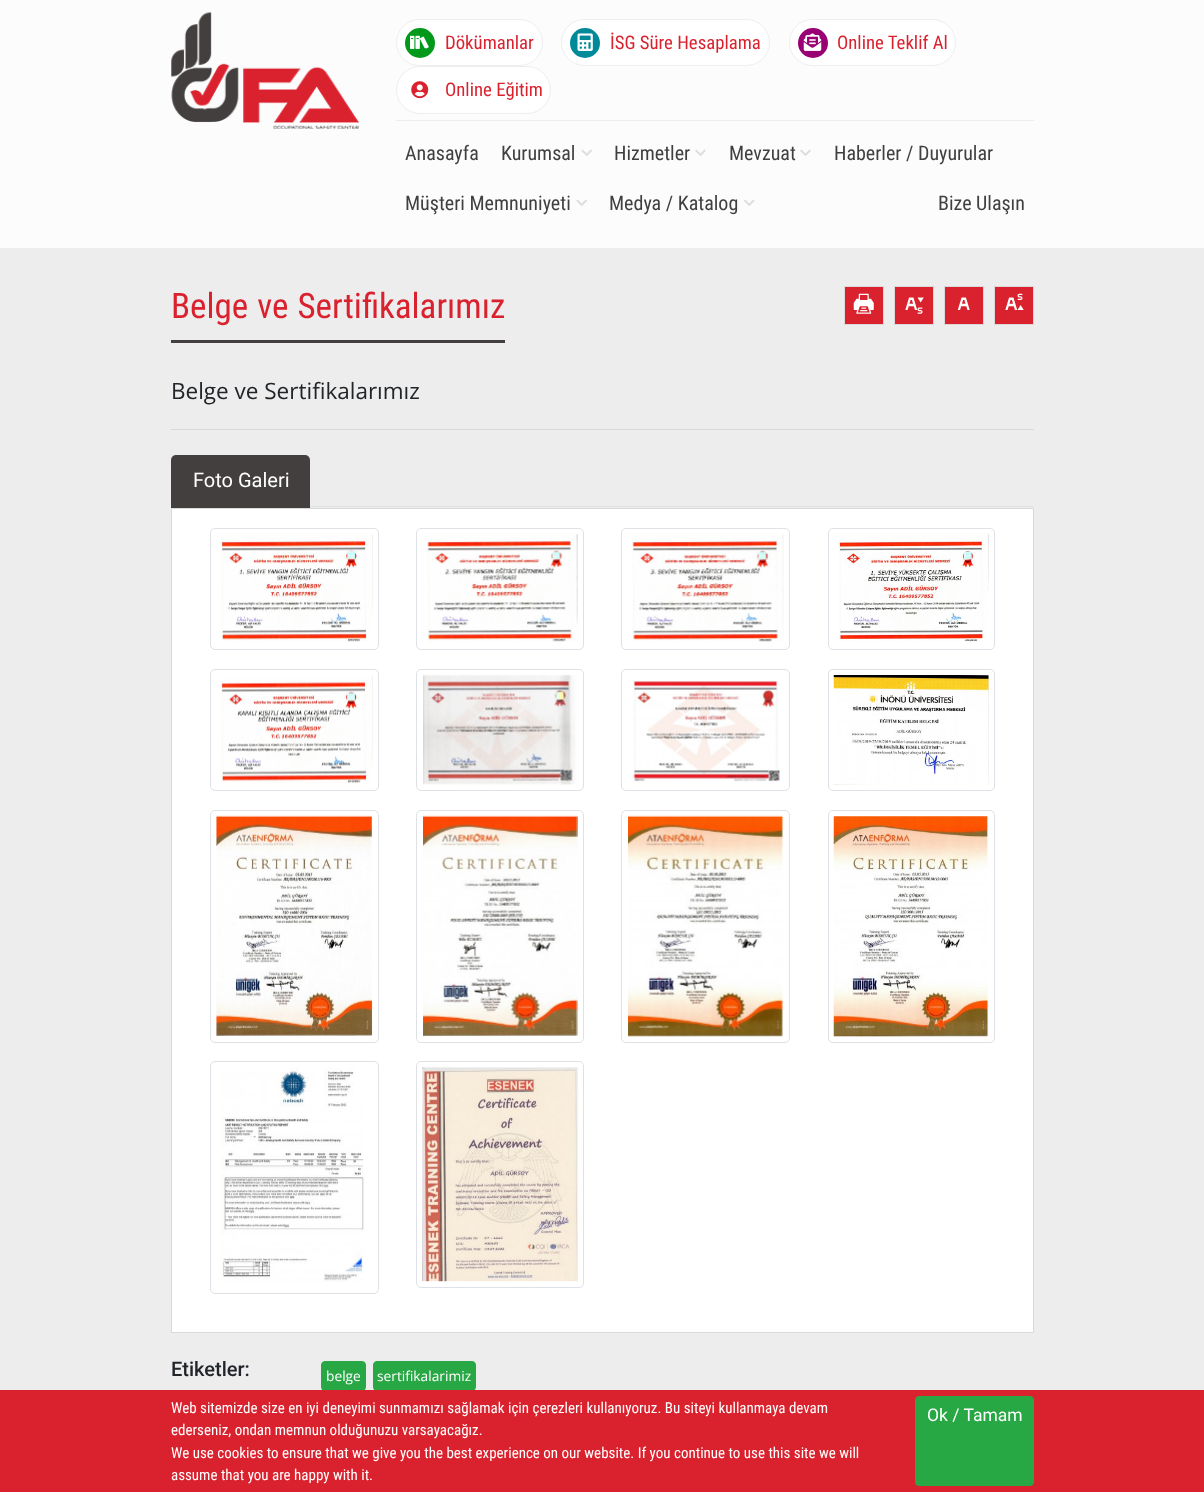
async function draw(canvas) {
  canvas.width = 1204;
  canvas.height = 1492;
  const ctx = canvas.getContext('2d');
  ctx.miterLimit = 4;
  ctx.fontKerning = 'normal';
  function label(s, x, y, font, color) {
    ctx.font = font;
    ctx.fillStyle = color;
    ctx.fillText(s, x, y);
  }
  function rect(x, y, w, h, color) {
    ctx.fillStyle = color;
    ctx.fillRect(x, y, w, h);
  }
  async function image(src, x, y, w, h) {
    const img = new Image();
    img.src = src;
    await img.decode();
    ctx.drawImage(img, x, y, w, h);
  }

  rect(0, 0, 1204, 1492, '#ededed');
  rect(0, 0, 1204, 248, '#fcfcfc');
  await image('assets/img1.png', 171, 12, 188, 117);
  rect(396, 120, 638, 1, '#eee');
  ctx.fillStyle = '#fff';
  ctx.beginPath();
  ctx.roundRect(396.5, 19.5, 146, 46, 23);
  ctx.fill();
  ctx.strokeStyle = '#eee';
  ctx.stroke();
  ctx.fillStyle = '#009919';
  ctx.beginPath();
  ctx.arc(420, 43, 15, 0, 2 * Math.PI);
  ctx.fill();
  await image('assets/img2.png', 410, 35, 19, 14);
  label('Dökümanlar', 445, 49, '18.75px Roboto Condensed', '#da222e');
  ctx.fillStyle = '#fff';
  ctx.beginPath();
  ctx.roundRect(561.5, 19.5, 208, 46, 23);
  ctx.fill();
  ctx.stroke();
  ctx.fillStyle = '#008999';
  ctx.beginPath();
  ctx.arc(585, 43, 15, 0, 2 * Math.PI);
  ctx.fill();
  await image('assets/img3.png', 577, 33, 16, 18);
  label('İSG Süre Hesaplama', 610, 49, '18.75px Roboto Condensed', '#da222e');
  ctx.fillStyle = '#fff';
  ctx.beginPath();
  ctx.roundRect(789.5, 19.5, 166, 46, 23);
  ctx.fill();
  ctx.stroke();
  ctx.fillStyle = '#990073';
  ctx.beginPath();
  ctx.arc(813, 43, 15, 0, 2 * Math.PI);
  ctx.fill();
  await image('assets/img4.png', 803, 33, 19, 18);
  label('Online Teklif Al', 837, 49, '18.75px Roboto Condensed', '#da222e');
  ctx.fillStyle = '#fff';
  ctx.beginPath();
  ctx.roundRect(396.5, 66.5, 154, 47, 23.5);
  ctx.fill();
  ctx.stroke();
  await image('assets/img5.png', 411, 81, 18, 18);
  label('Online Eğitim', 445, 96, '18.75px Roboto Condensed', '#da222e');
  label('Anasayfa', 405, 160, '20px Roboto Condensed', '#404040');
  label('Kurumsal', 501, 160, '20px Roboto Condensed', '#404040');
  await image('assets/img6.png', 581, 149, 11, 7);
  label('Hizmetler', 614, 160, '20px Roboto Condensed', '#404040');
  await image('assets/img7.png', 695, 149, 11, 7);
  label('Mevzuat', 729, 160, '20px Roboto Condensed', '#404040');
  await image('assets/img7.png', 800, 149, 11, 7);
  label('Haberler / Duyurular', 834, 160, '20px Roboto Condensed', '#404040');
  label('Müşteri Memnuniyeti', 405, 210, '20px Roboto Condensed', '#404040');
  await image('assets/img6.png', 576, 199, 11, 7);
  label('Medya / Katalog', 609, 210, '20px Roboto Condensed', '#404040');
  await image('assets/img8.png', 744, 199, 11, 7);
  label('Bize Ulaşın', 938, 210, '20px Roboto Condensed', '#404040');
  rect(171, 340, 334, 3, '#423f3e');
  ctx.wordSpacing = '1px';
  label('Belge ve Sertifikalarımız', 171, 318, '35px Roboto Condensed', '#da222e');
  ctx.beginPath();
  ctx.rect(844.5, 286.5, 39, 38);
  ctx.fill();
  ctx.strokeStyle = '#d9d9d9';
  ctx.stroke();
  await image('assets/img9.png', 853, 293, 21, 21);
  ctx.beginPath();
  ctx.rect(894.5, 286.5, 39, 38);
  ctx.fill();
  ctx.stroke();
  await image('assets/img10.png', 905, 297, 19, 17);
  ctx.beginPath();
  ctx.rect(944.5, 286.5, 39, 38);
  ctx.fill();
  ctx.stroke();
  await image('assets/img11.png', 957, 297, 13, 13);
  ctx.beginPath();
  ctx.rect(994.5, 286.5, 39, 38);
  ctx.fill();
  ctx.stroke();
  await image('assets/img12.png', 1005, 293, 19, 17);
  rect(171, 429, 863, 1, '#d9d9d9');
  ctx.wordSpacing = '0px';
  label('Belge ve Sertifikalarımız', 171, 399, '22.5px Open Sans', '#212529');
  rect(310, 506, 724, 1, '#dee2e6');
  ctx.fillStyle = '#423f3e';
  ctx.beginPath();
  ctx.roundRect(171, 455, 139, 53, [5, 5, 0, 0]);
  ctx.fill();
  label('Foto Galeri', 193, 487, '20px Roboto', '#fff');
  ctx.beginPath();
  ctx.rect(171.5, 508.5, 862, 824);
  ctx.fill();
  ctx.stroke();
  ctx.beginPath();
  ctx.roundRect(210.5, 528.5, 168, 121, 4.5);
  ctx.strokeStyle = '#dee2e6';
  ctx.stroke();
  await image('assets/img13.png', 221, 534, 152, 108);
  ctx.beginPath();
  ctx.roundRect(416.5, 528.5, 167, 121, 4.5);
  ctx.stroke();
  await image('assets/img14.png', 427, 534, 151, 108);
  ctx.beginPath();
  ctx.roundRect(621.5, 528.5, 168, 121, 4.5);
  ctx.stroke();
  await image('assets/img15.png', 632, 534, 152, 108);
  ctx.beginPath();
  ctx.roundRect(828.5, 528.5, 166, 121, 4.5);
  ctx.stroke();
  await image('assets/img16.png', 839, 534, 150, 108);
  ctx.beginPath();
  ctx.roundRect(210.5, 669.5, 168, 121, 4.5);
  ctx.stroke();
  await image('assets/img17.png', 221, 675, 152, 108);
  ctx.beginPath();
  ctx.roundRect(416.5, 669.5, 167, 121, 4.5);
  ctx.stroke();
  await image('assets/img18.png', 423, 674, 153, 111);
  ctx.beginPath();
  ctx.roundRect(621.5, 669.5, 168, 121, 4.5);
  ctx.stroke();
  await image('assets/img19.png', 633, 680, 147, 102);
  ctx.beginPath();
  ctx.roundRect(828.5, 669.5, 166, 121, 4.5);
  ctx.stroke();
  await image('assets/img20.png', 833, 675, 156, 110);
  ctx.beginPath();
  ctx.roundRect(210.5, 810.5, 168, 232, 4.5);
  ctx.stroke();
  await image('assets/img21.png', 216, 815, 157, 221);
  ctx.beginPath();
  ctx.roundRect(416.5, 810.5, 167, 232, 4.5);
  ctx.stroke();
  await image('assets/img22.png', 423, 815, 155, 222);
  ctx.beginPath();
  ctx.roundRect(621.5, 810.5, 168, 232, 4.5);
  ctx.stroke();
  await image('assets/img23.png', 628, 815, 156, 222);
  ctx.beginPath();
  ctx.roundRect(828.5, 810.5, 166, 232, 4.5);
  ctx.stroke();
  await image('assets/img24.png', 833, 816, 156, 221);
  ctx.beginPath();
  ctx.roundRect(210.5, 1061.5, 168, 232, 4.5);
  ctx.stroke();
  await image('assets/img25.png', 221, 1068, 143, 214);
  ctx.beginPath();
  ctx.roundRect(416.5, 1061.5, 167, 226, 4.5);
  ctx.stroke();
  await image('assets/img26.png', 422, 1067, 156, 215);
  label('Etiketler:', 171, 1376, '500 20px Roboto', '#212529');
  ctx.fillStyle = '#28a745';
  ctx.beginPath();
  ctx.roundRect(321.5, 1361.5, 44, 29, 3.5);
  ctx.fill();
  ctx.strokeStyle = '#28a745';
  ctx.stroke();
  label('belge', 326, 1381, '13.75px Open Sans', '#fff');
  ctx.fillStyle = '#28a745';
  ctx.beginPath();
  ctx.roundRect(373.5, 1361.5, 102, 29, 3.5);
  ctx.fill();
  ctx.stroke();
  label('sertifikalarimiz', 377, 1381, '13.75px Open Sans', '#fff');
  rect(0, 1390, 1204, 102, '#da222e');
  label('Web sitemizde size en iyi deneyimi sunmamızı sağlamak için çerezleri kullanıyoruz. Bu siteyi kullanmaya devam', 171, 1413, '15px Roboto Condensed', '#fff');
  label('ederseniz, ondan memnun olduğunuzu varsayacağız.', 171, 1435, '15px Roboto Condensed', '#fff');
  label('We use cookies to ensure that we give you the best experience on our website. If you continue to use this site we will', 171, 1458, '15px Roboto Condensed', '#fff');
  label('assume that you are happy with it.', 171, 1480, '15px Roboto Condensed', '#fff');
  ctx.fillStyle = '#28a745';
  ctx.beginPath();
  ctx.roundRect(915.5, 1396.5, 118, 89, 3.5);
  ctx.fill();
  ctx.stroke();
  label('Ok / Tamam', 927, 1421, '17.5px Roboto', '#fff');
}

draw(document.querySelector('canvas'));
